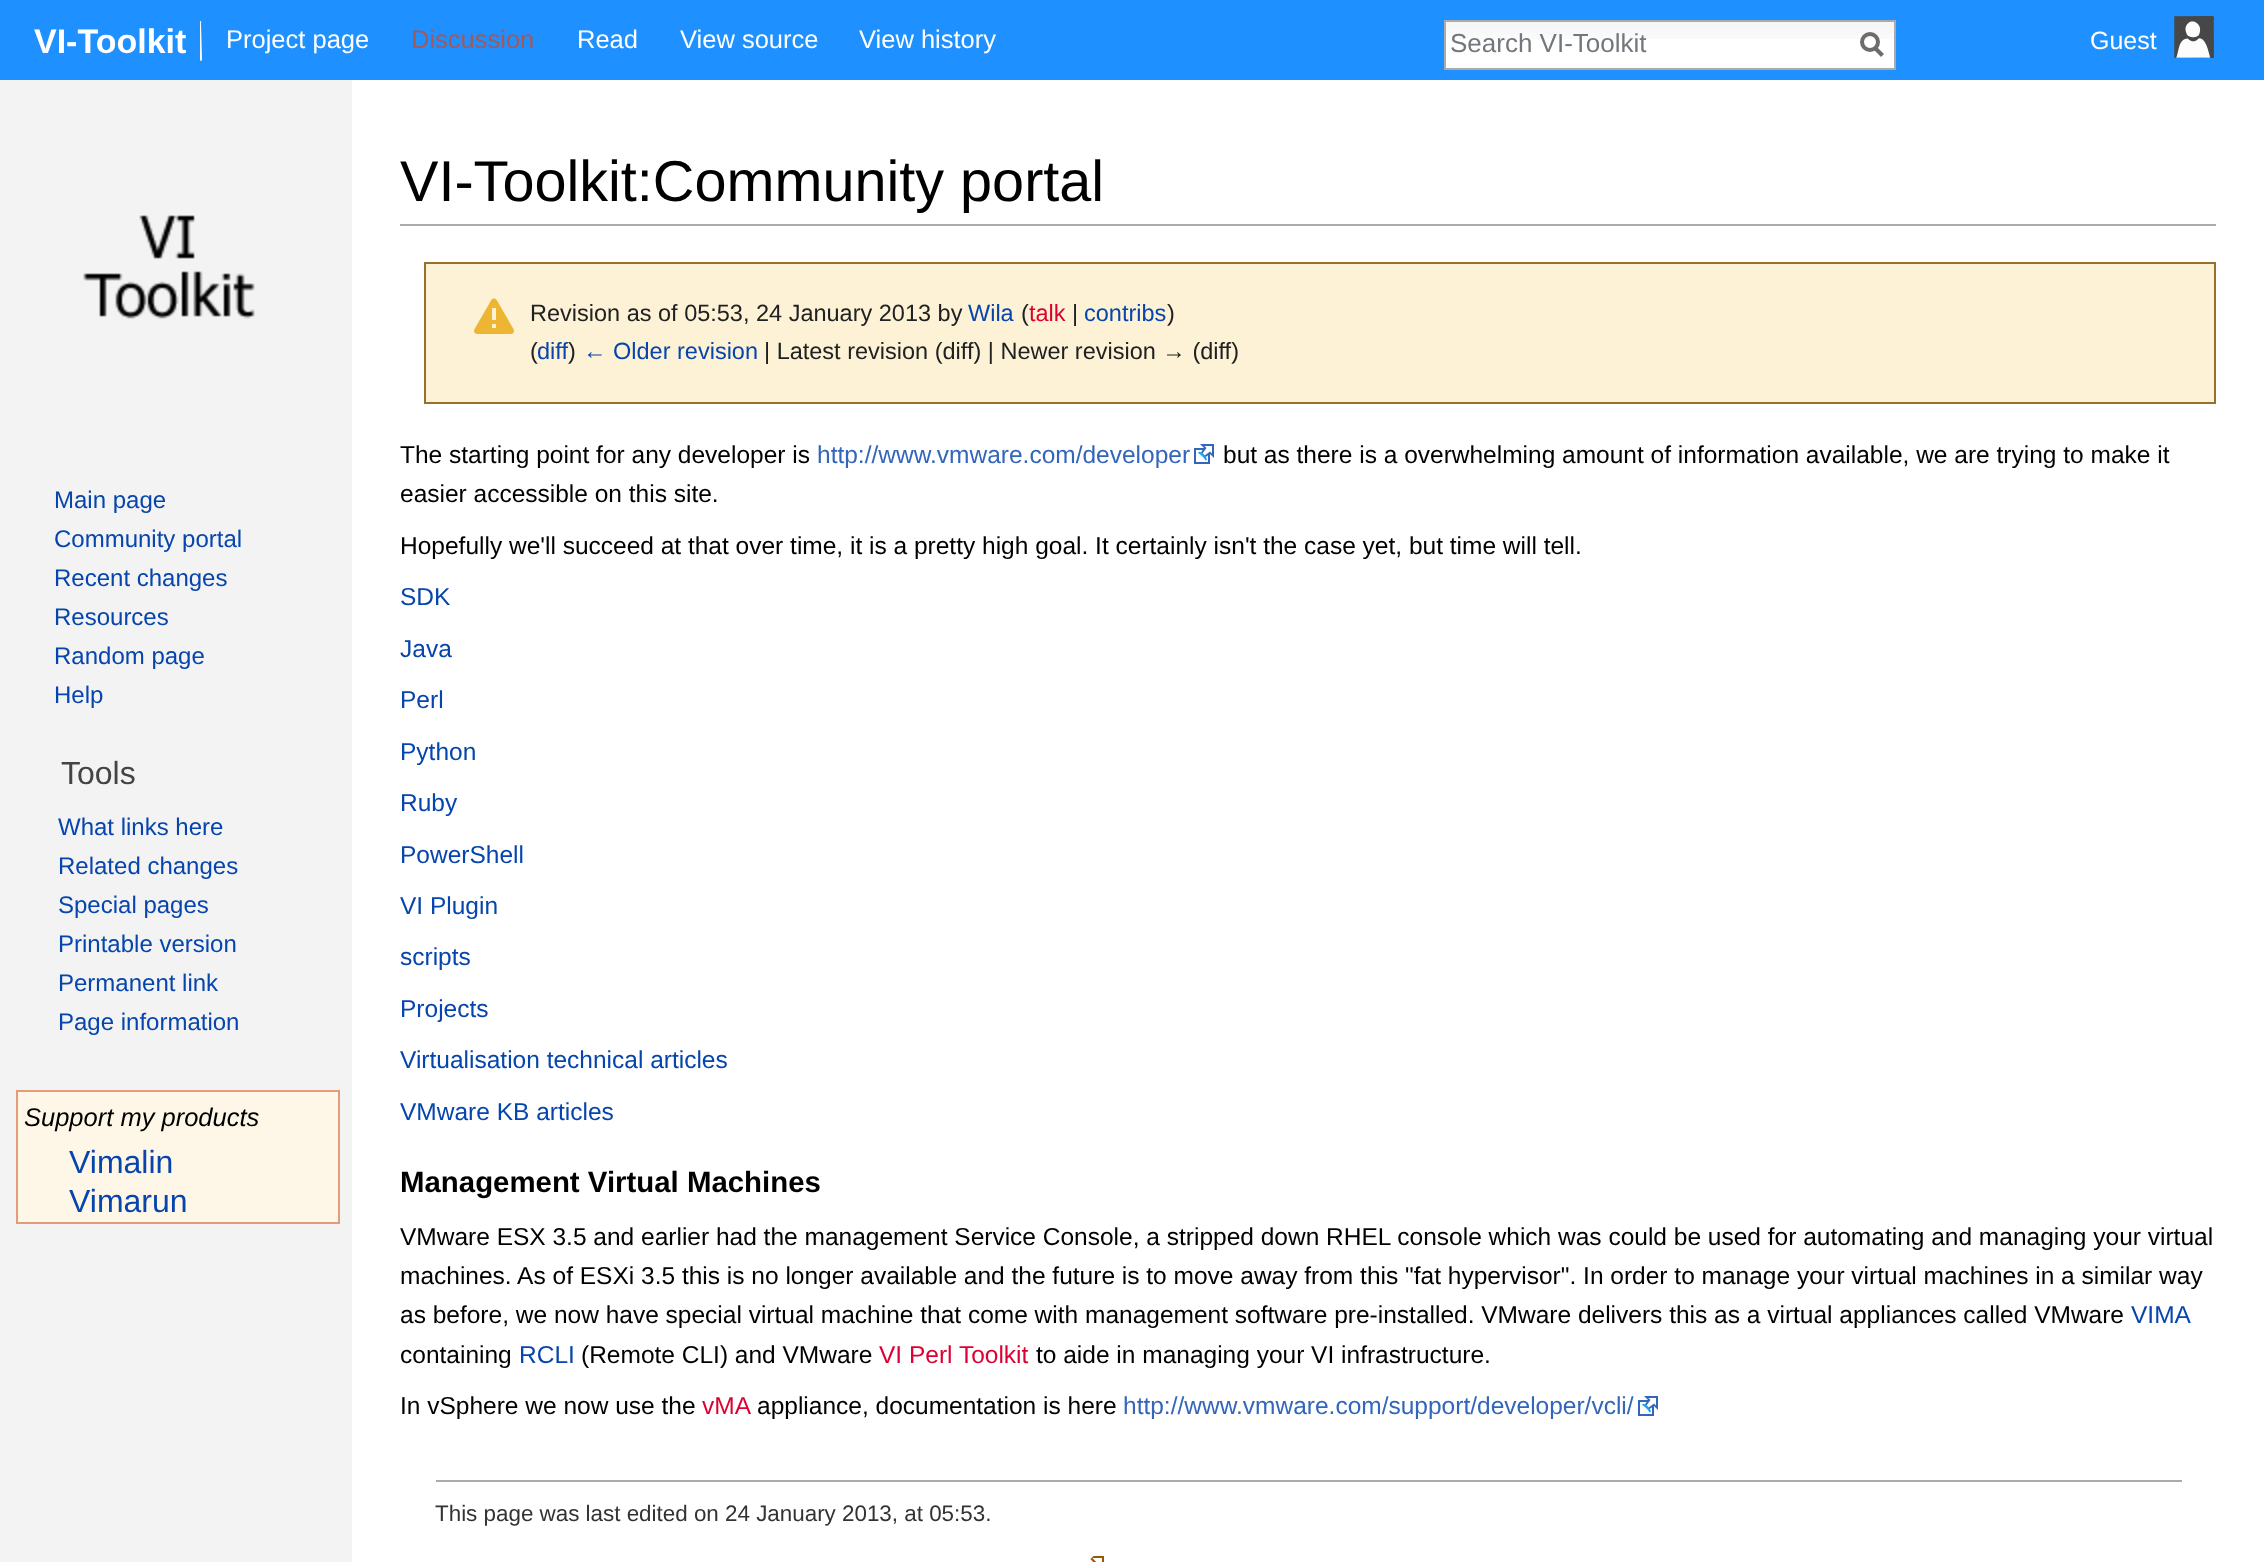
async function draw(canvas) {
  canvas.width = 2264;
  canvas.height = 1562;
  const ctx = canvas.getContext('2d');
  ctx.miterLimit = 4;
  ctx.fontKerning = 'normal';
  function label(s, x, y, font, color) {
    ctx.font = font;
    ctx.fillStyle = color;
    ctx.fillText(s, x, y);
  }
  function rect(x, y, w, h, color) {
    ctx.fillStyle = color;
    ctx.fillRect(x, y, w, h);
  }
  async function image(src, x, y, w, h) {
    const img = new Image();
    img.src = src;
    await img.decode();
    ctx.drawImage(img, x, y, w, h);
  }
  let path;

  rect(0, 0, 2264, 1562, '#f3f3f3');
  rect(0, 0, 2264, 80, '#1e90ff');
  label('VI-Toolkit', 34, 53, 'bold 34px Liberation Sans', '#fff');
  ctx.save();
  ctx.beginPath();
  ctx.rect(200, 0, 2, 70);
  ctx.clip();
  ctx.fillStyle = '#fefefe';
  path = new Path2D('M200 41V22C200 20 202 21 201 23L202 60L201 61C199 61 200 53 200 52Z');
  ctx.fill(path);
  ctx.restore();
  label('Project page', 226, 48, '25.5px Liberation Sans', '#fff');
  label('Discussion', 411, 48, '25.5px Liberation Sans', '#a55858');
  label('Read', 577, 48, '25.5px Liberation Sans', '#fff');
  label('View source', 680, 48, '25.5px Liberation Sans', '#fff');
  label('View history', 859, 48, '25.5px Liberation Sans', '#fff');
  rect(1446, 39, 448, 29, '#fff');
  await image('assets/img1.png', 1446, 22, 448, 17);
  ctx.strokeStyle = '#aaa';
  ctx.lineWidth = 2;
  ctx.strokeRect(1445, 21, 450, 48);
  label('Search VI-Toolkit', 1450, 52, '26px Liberation Sans', '#72777d');
  path = new Path2D('M1882.5 55.5L1874.5 47.5');
  ctx.strokeStyle = '#6c6c6c';
  ctx.lineWidth = 4;
  ctx.stroke(path);
  ctx.beginPath();
  ctx.arc(1870, 42, 8, 0, 2 * Math.PI);
  ctx.stroke();
  label('Guest', 2090, 49, '25px Liberation Sans', '#fff');
  await image('assets/img2.png', 2174, 16, 40, 42);
  await image('assets/img3.png', 83, 215, 172, 104);
  label('Main page', 54, 508, '24px Liberation Sans', '#0645ad');
  label('Community portal', 54, 547, '24px Liberation Sans', '#0645ad');
  label('Recent changes', 54, 586, '24px Liberation Sans', '#0645ad');
  label('Resources', 54, 625, '24px Liberation Sans', '#0645ad');
  label('Random page', 54, 664, '24px Liberation Sans', '#0645ad');
  label('Help', 54, 703, '24px Liberation Sans', '#0645ad');
  label('Tools', 61, 784, '32px Liberation Sans', '#444');
  label('What links here', 58, 835, '24px Liberation Sans', '#0645ad');
  label('Related changes', 58, 874, '24px Liberation Sans', '#0645ad');
  label('Special pages', 58, 913, '24px Liberation Sans', '#0645ad');
  label('Printable version', 58, 952, '24px Liberation Sans', '#0645ad');
  label('Permanent link', 58, 991, '24px Liberation Sans', '#0645ad');
  label('Page information', 58, 1030, '24px Liberation Sans', '#0645ad');
  ctx.fillStyle = '#fef6e7';
  ctx.beginPath();
  ctx.rect(17, 1091, 322, 132);
  ctx.fill();
  ctx.strokeStyle = '#e39c79';
  ctx.lineWidth = 2;
  ctx.stroke();
  label('Support my products', 24, 1126, 'italic 25.5px Liberation Sans', '#000');
  label('Vimalin', 69, 1173, '32px Liberation Sans', '#0645ad');
  label('Vimarun', 69, 1212, '32px Liberation Sans', '#0645ad');
  rect(352, 80, 1912, 1482, '#fff');
  rect(400, 224, 1816, 2, '#aaa');
  label('VI-Toolkit:Community portal', 400, 201, '57.6px Liberation Sans', '#000');
  ctx.fillStyle = '#fdf2d5';
  ctx.beginPath();
  ctx.rect(425, 263, 1790, 140);
  ctx.fill();
  ctx.strokeStyle = '#987027';
  ctx.stroke();
  await image('assets/img4.png', 474, 298, 40, 36);
  label('Revision as of 05:53, 24 January 2013 by', 530, 321, '23.5px Liberation Sans', '#202122');
  label('Wila', 968, 321, '23.5px Liberation Sans', '#0645ad');
  label('(', 1021, 321, '23.5px Liberation Sans', '#202122');
  label('talk', 1029, 321, '23.5px Liberation Sans', '#d03');
  label('|', 1072, 321, '23.5px Liberation Sans', '#202122');
  label('contribs', 1084, 321, '23.5px Liberation Sans', '#0645ad');
  label(')', 1167, 321, '23.5px Liberation Sans', '#202122');
  label('(', 530, 359, '23.5px Liberation Sans', '#202122');
  label('diff', 537, 359, '23.5px Liberation Sans', '#0645ad');
  label(')', 568, 359, '23.5px Liberation Sans', '#202122');
  label('← Older revision', 583, 359, '23.5px Liberation Sans', '#0645ad');
  label('| Latest revision (diff) | Newer revision → (diff)', 764, 359, '23.5px Liberation Sans', '#202122');
  label('The starting point for any developer is', 400, 463, '24.5px Liberation Sans', '#000');
  label('http://www.vmware.com/developer', 817, 463, '24.5px Liberation Sans', '#36b');
  await image('assets/img5.png', 1194, 444, 20, 20);
  label('but as there is a overwhelming amount of information available, we are trying to make it', 1223, 463, '24.5px Liberation Sans', '#000');
  label('easier accessible on this site.', 400, 502, '24.5px Liberation Sans', '#000');
  label('Hopefully we\'ll succeed at that over time, it is a pretty high goal. It certainly isn\'t the case yet, but time will tell.', 400, 554, '24.5px Liberation Sans', '#000');
  label('SDK', 400, 605, '24.5px Liberation Sans', '#0645ad');
  label('Java', 400, 657, '24.5px Liberation Sans', '#0645ad');
  label('Perl', 400, 708, '24.5px Liberation Sans', '#0645ad');
  label('Python', 400, 760, '24.5px Liberation Sans', '#0645ad');
  label('Ruby', 400, 811, '24.5px Liberation Sans', '#0645ad');
  label('PowerShell', 400, 863, '24.5px Liberation Sans', '#0645ad');
  label('VI Plugin', 400, 914, '24.5px Liberation Sans', '#0645ad');
  label('scripts', 400, 965, '24.5px Liberation Sans', '#0645ad');
  label('Projects', 400, 1017, '24.5px Liberation Sans', '#0645ad');
  label('Virtualisation technical articles', 400, 1068, '24.5px Liberation Sans', '#0645ad');
  label('VMware KB articles', 400, 1120, '24.5px Liberation Sans', '#0645ad');
  label('Management Virtual Machines', 400, 1192, 'bold 29.4px Liberation Sans', '#000');
  label('VMware ESX 3.5 and earlier had the management Service Console, a stripped down RHEL console which was could be used for automating and managing your virtual', 400, 1245, '24.5px Liberation Sans', '#000');
  label('machines. As of ESXi 3.5 this is no longer available and the future is to move away from this "fat hypervisor". In order to manage your virtual machines in a similar way', 400, 1284, '24.5px Liberation Sans', '#000');
  label('as before, we now have special virtual machine that come with management software pre-installed. VMware delivers this as a virtual appliances called VMware', 400, 1323, '24.5px Liberation Sans', '#000');
  label('VIMA', 2131, 1323, '24.5px Liberation Sans', '#0645ad');
  label('containing', 400, 1363, '24.5px Liberation Sans', '#000');
  label('RCLI', 519, 1363, '24.5px Liberation Sans', '#0645ad');
  label('(Remote CLI) and VMware', 581, 1363, '24.5px Liberation Sans', '#000');
  label('VI Perl Toolkit', 879, 1363, '24.5px Liberation Sans', '#d03');
  label('to aide in managing your VI infrastructure.', 1036, 1363, '24.5px Liberation Sans', '#000');
  label('In vSphere we now use the', 400, 1414, '24.5px Liberation Sans', '#000');
  label('vMA', 702, 1414, '24.5px Liberation Sans', '#d03');
  label('appliance, documentation is here', 757, 1414, '24.5px Liberation Sans', '#000');
  label('http://www.vmware.com/support/developer/vcli/', 1123, 1414, '24.5px Liberation Sans', '#36b');
  await image('assets/img5.png', 1638, 1396, 20, 20);
  rect(436, 1480, 1746, 2, '#aaa');
  label('This page was last edited on 24 January 2013, at 05:53.', 435, 1521, '22.4px Liberation Sans', '#333');
  await image('assets/img6.png', 1090, 1556, 14, 6);
}

draw(document.querySelector('canvas'));
